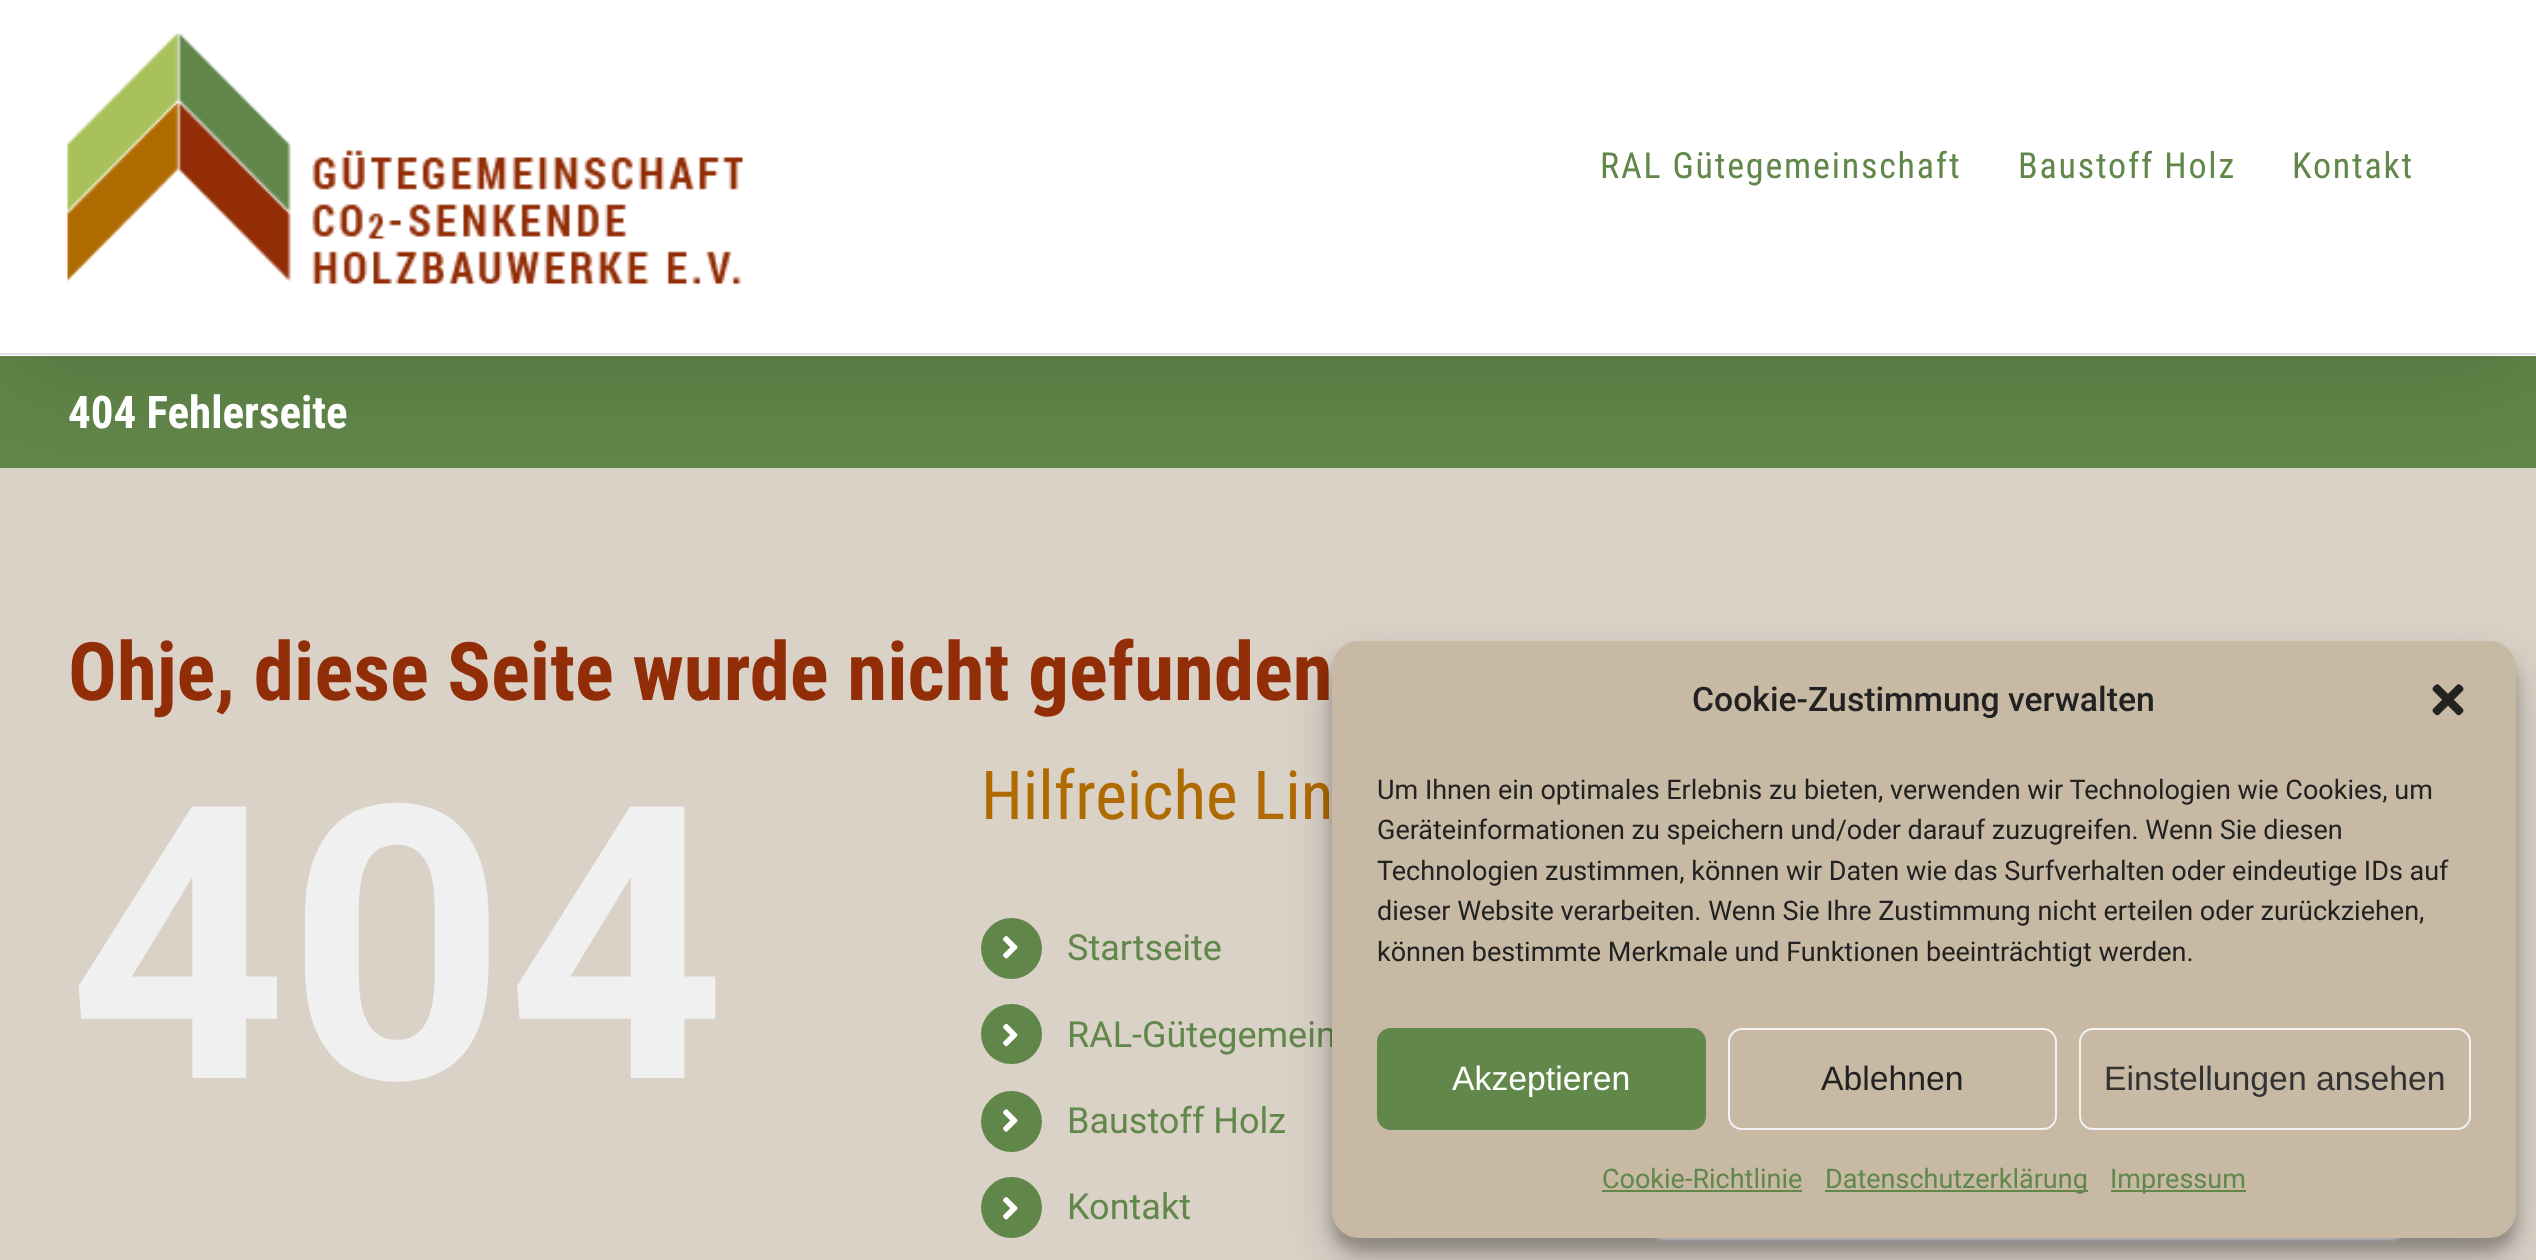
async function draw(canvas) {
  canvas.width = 2536;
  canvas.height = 1260;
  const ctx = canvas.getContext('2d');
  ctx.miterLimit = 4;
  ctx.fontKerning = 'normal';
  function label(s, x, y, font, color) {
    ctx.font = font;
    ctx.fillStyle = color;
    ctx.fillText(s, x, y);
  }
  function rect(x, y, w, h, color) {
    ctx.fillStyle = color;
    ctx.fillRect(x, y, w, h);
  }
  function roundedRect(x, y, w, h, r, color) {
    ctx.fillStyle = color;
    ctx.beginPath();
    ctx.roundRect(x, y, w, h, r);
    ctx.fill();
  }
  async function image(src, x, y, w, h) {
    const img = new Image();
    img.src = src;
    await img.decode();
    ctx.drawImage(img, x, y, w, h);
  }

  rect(0, 0, 2536, 1260, '#61864a');
  rect(0, 468, 2536, 792, '#dad1c7');
  ctx.fillStyle = '#00000024';
  ctx.filter = 'blur(56px)';
  ctx.beginPath();
  ctx.rect(5, 27, 2529, 347);
  ctx.fill();
  ctx.filter = 'none';
  rect(0, 0, 2536, 356, '#fff');
  rect(0, 353, 2536, 2, '#e2e2e2');
  await image('assets/img1.png', 67, 33, 676, 252);
  ctx.letterSpacing = '1.8px';
  label('RAL Gütegemeinschaft', 1600, 178, '36px Roboto Condensed', '#61874b');
  label('Baustoff Holz', 2018, 178, '36px Roboto Condensed', '#61874b');
  label('Kontakt', 2292, 178, '36px Roboto Condensed', '#61874b');
  ctx.letterSpacing = '0px';
  label('404 Fehlerseite', 68, 428, 'bold 45px Roboto Condensed', '#fff');
  label('Ohje, diese Seite wurde nicht gefunden', 68, 700, 'bold 81px Roboto Condensed', '#922e07');
  label('404', 68, 1078, 'bold 382px Roboto', '#f0f0f0');
  label('Hilfreiche Lin', 981, 819, '67.5px Roboto Condensed', '#b06b00');
  ctx.fillStyle = '#61864a';
  ctx.beginPath();
  ctx.arc(1011.5, 948.5, 30.5, 0, 2 * Math.PI);
  ctx.fill();
  await image('assets/img2.png', 1003, 936, 15, 23);
  label('Startseite', 1067, 960, '36px Roboto', '#61874b');
  roundedRect(981, 1004, 61, 60, 30, '#61864a');
  await image('assets/img3.png', 1003, 1023, 15, 24);
  label('RAL-Gütegemein', 1067, 1047, '36px Roboto', '#61874b');
  ctx.fillStyle = '#61864a';
  ctx.beginPath();
  ctx.arc(1011.5, 1121.5, 30.5, 0, 2 * Math.PI);
  ctx.fill();
  await image('assets/img4.png', 1003, 1109, 15, 23);
  label('Baustoff Holz', 1067, 1133, '36px Roboto', '#61874b');
  ctx.fillStyle = '#61864a';
  ctx.beginPath();
  ctx.arc(1011.5, 1207.5, 30.5, 0, 2 * Math.PI);
  ctx.fill();
  await image('assets/img2.png', 1003, 1197, 15, 23);
  label('Kontakt', 1067, 1219, '36px Roboto', '#61874b');
  ctx.fillStyle = '#fff';
  ctx.beginPath();
  ctx.roundRect(1650, 1131, 754, 110, 13);
  ctx.fill();
  ctx.strokeStyle = '#e2e2e2';
  ctx.lineWidth = 2;
  ctx.stroke();
  ctx.fillStyle = '#0000003b';
  ctx.filter = 'blur(7px)';
  ctx.beginPath();
  ctx.roundRect(1332, 655, 1184, 596, 27);
  ctx.fill();
  ctx.filter = 'none';
  ctx.fillStyle = '#00000030';
  ctx.filter = 'blur(22.5px)';
  ctx.beginPath();
  ctx.roundRect(1332, 664, 1184, 596, 27);
  ctx.fill();
  ctx.filter = 'none';
  roundedRect(1332, 641, 1184, 597, 27, '#c7b9a4');
  label('Cookie-Zustimmung verwalten', 1692, 711, '500 33.75px Roboto', '#222');
  await image('assets/img5.png', 2432, 684, 32, 32);
  label('Um Ihnen ein optimales Erlebnis zu bieten, verwenden wir Technologien wie Cookies, um', 1377, 799, '27px Roboto', '#222');
  label('Geräteinformationen zu speichern und/oder darauf zuzugreifen. Wenn Sie diesen', 1377, 839, '27px Roboto', '#222');
  label('Technologien zustimmen, können wir Daten wie das Surfverhalten oder eindeutige IDs auf', 1377, 880, '27px Roboto', '#222');
  label('dieser Website verarbeiten. Wenn Sie Ihre Zustimmung nicht erteilen oder zurückziehen,', 1377, 920, '27px Roboto', '#222');
  label('können bestimmte Merkmale und Funktionen beeinträchtigt werden.', 1377, 961, '27px Roboto', '#222');
  ctx.fillStyle = '#61874b';
  ctx.beginPath();
  ctx.roundRect(1378, 1029, 327, 100, 13);
  ctx.fill();
  ctx.strokeStyle = '#61874b';
  ctx.stroke();
  label('Akzeptieren', 1452, 1090, '33.75px Liberation Sans', '#fff');
  ctx.beginPath();
  ctx.roundRect(1729, 1029, 327, 100, 13);
  ctx.strokeStyle = '#f2f2f2';
  ctx.stroke();
  label('Ablehnen', 1821, 1090, '33.75px Liberation Sans', '#222');
  ctx.beginPath();
  ctx.roundRect(2080, 1029, 390, 100, 13);
  ctx.stroke();
  label('Einstellungen ansehen', 2104, 1090, '33.75px Liberation Sans', '#333');
  label('Cookie-Richtlinie', 1602, 1188, '27px Roboto', '#61874b');
  rect(1602, 1190, 200, 2, '#61874b');
  rect(1825, 1190, 263, 2, '#61874b');
  label('Datenschutzerklärung', 1825, 1188, '27px Roboto', '#61874b');
  rect(2111, 1190, 135, 2, '#61874b');
  label('Impressum', 2110, 1188, '27px Roboto', '#61874b');
}

draw(document.querySelector('canvas'));
